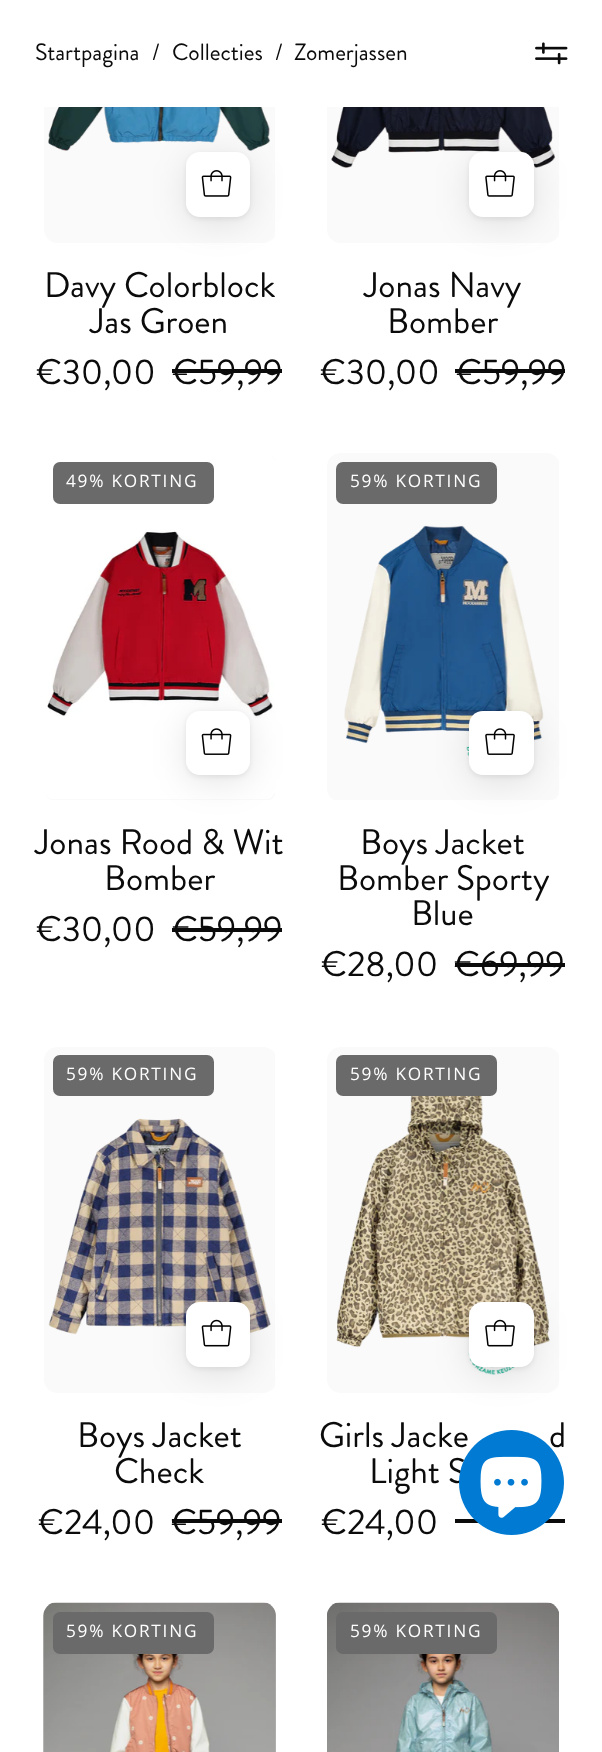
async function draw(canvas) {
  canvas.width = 602;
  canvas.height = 1752;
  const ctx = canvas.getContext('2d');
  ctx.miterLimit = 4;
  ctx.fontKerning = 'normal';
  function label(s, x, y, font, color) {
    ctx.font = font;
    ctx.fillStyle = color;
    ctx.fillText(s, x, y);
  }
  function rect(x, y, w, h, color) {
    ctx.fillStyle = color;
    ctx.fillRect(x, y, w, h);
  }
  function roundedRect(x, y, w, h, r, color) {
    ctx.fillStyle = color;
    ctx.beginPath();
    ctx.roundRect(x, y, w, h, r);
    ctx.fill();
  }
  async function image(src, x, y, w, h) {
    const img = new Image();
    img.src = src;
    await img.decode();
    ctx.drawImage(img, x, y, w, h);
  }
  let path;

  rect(0, 0, 602, 1752, '#fff');
  ctx.fillStyle = '#fafafa';
  path = new Path2D('M58-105C50-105 44-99 44-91V229C44 236 49 242 56 243H265C269 242 273 240 275 236V-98C273-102 268-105 263-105Z');
  ctx.fill(path);
  await image('assets/img2.png', 48, 107, 222, 44);
  ctx.fillStyle = '#0000001a';
  ctx.filter = 'blur(17.5px)';
  ctx.beginPath();
  ctx.roundRect(186, 159, 64, 65, 14);
  ctx.fill();
  ctx.filter = 'none';
  ctx.fillStyle = '#fafafa';
  path = new Path2D('M341-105C333-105 327-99 327-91V229C327 236 332 242 339 243H548C553 242 557 239 559 235V-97C556-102 552-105 546-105Z');
  ctx.fill(path);
  await image('assets/img4.png', 331, 107, 224, 61);
  ctx.fillStyle = '#0000001a';
  ctx.filter = 'blur(17.5px)';
  ctx.beginPath();
  ctx.roundRect(469, 159, 65, 65, 14);
  ctx.fill();
  ctx.filter = 'none';
  rect(44, 0, 515, 107, '#fff');
  label('Startpagina', 35, 60, '23.5px Brandon Grotesque', '#0b0b0b');
  label('/', 152, 60, '23.5px Brandon Grotesque', '#0b0b0b');
  label('Collecties', 172, 60, '23.5px Brandon Grotesque', '#0b0b0b');
  label('/', 275, 60, '23.5px Brandon Grotesque', '#0b0b0b');
  label('Zomerjassen', 294, 60, '23.5px Brandon Grotesque', '#0b0b0b');
  await image('assets/img1.png', 535, 42, 33, 23);
  ctx.fillStyle = '#00000012';
  ctx.filter = 'blur(2.5px)';
  ctx.beginPath();
  ctx.roundRect(186, 154, 64, 65, 14);
  ctx.fill();
  ctx.filter = 'none';
  roundedRect(186, 152, 64, 65, 14, '#fff');
  await image('assets/img3.png', 201, 170, 31, 27);
  label('Davy Colorblock', 44, 297, '35.5px Brandon Grotesque', '#0b0b0b');
  label('Jas Groen', 90, 333, '35.5px Brandon Grotesque', '#0b0b0b');
  label('€30,00', 36, 384, '35.5px Brandon Grotesque', '#0b0b0b');
  label('€59,99', 172, 384, '35.5px Brandon Grotesque', '#0b0b0b');
  rect(172, 369, 110, 4, '#0b0b0b');
  ctx.fillStyle = '#00000012';
  ctx.filter = 'blur(2.5px)';
  ctx.beginPath();
  ctx.roundRect(469, 154, 65, 65, 14);
  ctx.fill();
  ctx.filter = 'none';
  roundedRect(469, 152, 65, 65, 14, '#fff');
  await image('assets/img5.png', 485, 170, 30, 27);
  label('Jonas Navy', 364, 297, '35.5px Brandon Grotesque', '#0b0b0b');
  label('Bomber', 387, 333, '35.5px Brandon Grotesque', '#0b0b0b');
  label('€30,00', 320, 384, '35.5px Brandon Grotesque', '#0b0b0b');
  label('€59,99', 456, 384, '35.5px Brandon Grotesque', '#0b0b0b');
  rect(455, 369, 110, 4, '#0b0b0b');
  ctx.fillStyle = '#fafafa';
  path = new Path2D('M58 453C50 453 44 459 44 467V788C44 793 47 798 51 800H270C272 799 274 797 275 795V460C273 456 268 453 263 453Z');
  ctx.fill(path);
  await image('assets/img6.png', 44, 453, 231, 346);
  roundedRect(53, 462, 161, 42, 7, '#6a6a6a');
  ctx.letterSpacing = '1.75px';
  label('49% KORTING', 66, 487, '17.25px Open Sans', '#fff');
  ctx.fillStyle = '#00000012';
  ctx.filter = 'blur(2.5px)';
  ctx.beginPath();
  ctx.roundRect(186, 712, 64, 65, 14);
  ctx.fill();
  ctx.filter = 'none';
  ctx.fillStyle = '#0000001a';
  ctx.filter = 'blur(17.5px)';
  ctx.beginPath();
  ctx.roundRect(186, 718, 64, 64, 14);
  ctx.fill();
  ctx.filter = 'none';
  roundedRect(186, 711, 64, 64, 14, '#fff');
  await image('assets/img7.png', 201, 728, 31, 27);
  ctx.letterSpacing = '0px';
  label('Jonas Rood & Wit', 35, 854, '35.5px Brandon Grotesque', '#0b0b0b');
  label('Bomber', 104, 890, '35.5px Brandon Grotesque', '#0b0b0b');
  label('€30,00', 36, 941, '35.5px Brandon Grotesque', '#0b0b0b');
  label('€59,99', 172, 941, '35.5px Brandon Grotesque', '#0b0b0b');
  rect(172, 928, 110, 4, '#0b0b0b');
  ctx.fillStyle = '#fafafa';
  path = new Path2D('M341 453C333 453 327 459 327 467V788C327 793 330 798 334 800H553C556 799 558 796 559 794V461C556 456 552 453 546 453Z');
  ctx.fill(path);
  await image('assets/img8.png', 344, 525, 200, 231);
  roundedRect(336, 462, 161, 42, 7, '#6a6a6a');
  ctx.letterSpacing = '1.75px';
  label('59% KORTING', 350, 487, '17.25px Open Sans', '#fff');
  ctx.fillStyle = '#00000012';
  ctx.filter = 'blur(2.5px)';
  ctx.beginPath();
  ctx.roundRect(469, 712, 65, 65, 14);
  ctx.fill();
  ctx.filter = 'none';
  ctx.fillStyle = '#0000001a';
  ctx.filter = 'blur(17.5px)';
  ctx.beginPath();
  ctx.roundRect(469, 718, 65, 64, 14);
  ctx.fill();
  ctx.filter = 'none';
  roundedRect(469, 711, 65, 64, 14, '#fff');
  await image('assets/img9.png', 485, 728, 30, 27);
  ctx.letterSpacing = '0px';
  label('Boys Jacket', 360, 854, '35.5px Brandon Grotesque', '#0b0b0b');
  label('Bomber Sporty', 337, 890, '35.5px Brandon Grotesque', '#0b0b0b');
  label('Blue', 411, 925, '35.5px Brandon Grotesque', '#0b0b0b');
  label('€28,00', 321, 976, '35.5px Brandon Grotesque', '#0b0b0b');
  label('€69,99', 454, 976, '35.5px Brandon Grotesque', '#0b0b0b');
  rect(455, 963, 110, 4, '#0b0b0b');
  ctx.fillStyle = '#fafafa';
  path = new Path2D('M58 1047C50 1047 44 1053 44 1061V1379C44 1387 50 1393 58 1393H263C268 1393 273 1390 275 1386V1054C273 1050 268 1047 263 1047Z');
  ctx.fill(path);
  await image('assets/img10.png', 48, 1118, 223, 217);
  roundedRect(53, 1055, 161, 41, 7, '#6a6a6a');
  ctx.letterSpacing = '1.75px';
  label('59% KORTING', 66, 1080, '17.25px Open Sans', '#fff');
  ctx.fillStyle = '#00000012';
  ctx.filter = 'blur(2.5px)';
  ctx.beginPath();
  ctx.roundRect(186, 1304, 64, 65, 14);
  ctx.fill();
  ctx.filter = 'none';
  ctx.fillStyle = '#0000001a';
  ctx.filter = 'blur(17.5px)';
  ctx.beginPath();
  ctx.roundRect(186, 1309, 64, 65, 14);
  ctx.fill();
  ctx.filter = 'none';
  roundedRect(186, 1302, 64, 65, 14, '#fff');
  await image('assets/img11.png', 201, 1319, 31, 28);
  ctx.letterSpacing = '0px';
  label('Boys Jacket', 77, 1447, '35.5px Brandon Grotesque', '#0b0b0b');
  label('Check', 114, 1483, '35.5px Brandon Grotesque', '#0b0b0b');
  label('€24,00', 38, 1534, '35.5px Brandon Grotesque', '#0b0b0b');
  label('€59,99', 171, 1534, '35.5px Brandon Grotesque', '#0b0b0b');
  rect(172, 1519, 110, 4, '#0b0b0b');
  ctx.fillStyle = '#fafafa';
  path = new Path2D('M341 1047C333 1047 327 1053 327 1061V1379C327 1387 333 1393 341 1393H546C552 1393 556 1390 559 1385V1055C556 1050 552 1047 546 1047Z');
  ctx.fill(path);
  await image('assets/img12.png', 336, 1096, 214, 279);
  roundedRect(336, 1055, 161, 41, 7, '#6a6a6a');
  ctx.letterSpacing = '1.75px';
  label('59% KORTING', 350, 1080, '17.25px Open Sans', '#fff');
  ctx.fillStyle = '#00000012';
  ctx.filter = 'blur(2.5px)';
  ctx.beginPath();
  ctx.roundRect(469, 1304, 65, 65, 14);
  ctx.fill();
  ctx.filter = 'none';
  ctx.fillStyle = '#0000001a';
  ctx.filter = 'blur(17.5px)';
  ctx.beginPath();
  ctx.roundRect(469, 1309, 65, 65, 14);
  ctx.fill();
  ctx.filter = 'none';
  roundedRect(469, 1302, 65, 65, 14, '#fff');
  await image('assets/img13.png', 485, 1319, 30, 28);
  ctx.letterSpacing = '0px';
  label('Girls Jacke', 319, 1447, '35.5px Brandon Grotesque', '#0b0b0b');
  label('d', 549, 1447, '35.5px Brandon Grotesque', '#0b0b0b');
  label('Light S', 369, 1483, '35.5px Brandon Grotesque', '#0b0b0b');
  label('€24,00', 321, 1534, '35.5px Brandon Grotesque', '#0b0b0b');
  rect(455, 1519, 110, 4, '#0b0b0b');
  ctx.fillStyle = '#fafafa';
  path = new Path2D('M58 1603C50 1603 44 1609 44 1617V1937C44 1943 48 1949 54 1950H267C271 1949 273 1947 275 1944V1610C273 1606 268 1603 263 1603Z');
  ctx.fill(path);
  await image('assets/img14.png', 43, 1602, 233, 150);
  roundedRect(53, 1612, 161, 42, 7, '#6a6a6a');
  ctx.letterSpacing = '1.75px';
  label('59% KORTING', 66, 1637, '17.25px Open Sans', '#fff');
  ctx.fillStyle = '#fafafa';
  path = new Path2D('M341 1603C333 1603 327 1609 327 1617V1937C327 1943 331 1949 337 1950H550C554 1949 557 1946 559 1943V1611C556 1606 552 1603 546 1603Z');
  ctx.fill(path);
  await image('assets/img15.png', 327, 1602, 232, 150);
  roundedRect(336, 1612, 161, 42, 7, '#6a6a6a');
  label('59% KORTING', 350, 1637, '17.25px Open Sans', '#fff');
  ctx.fillStyle = '#007ad2';
  ctx.beginPath();
  ctx.arc(511.5, 1482.5, 52.5, 0, 2 * Math.PI);
  ctx.fill();
  await image('assets/img16.png', 480, 1456, 62, 62);
}

draw(document.querySelector('canvas'));
